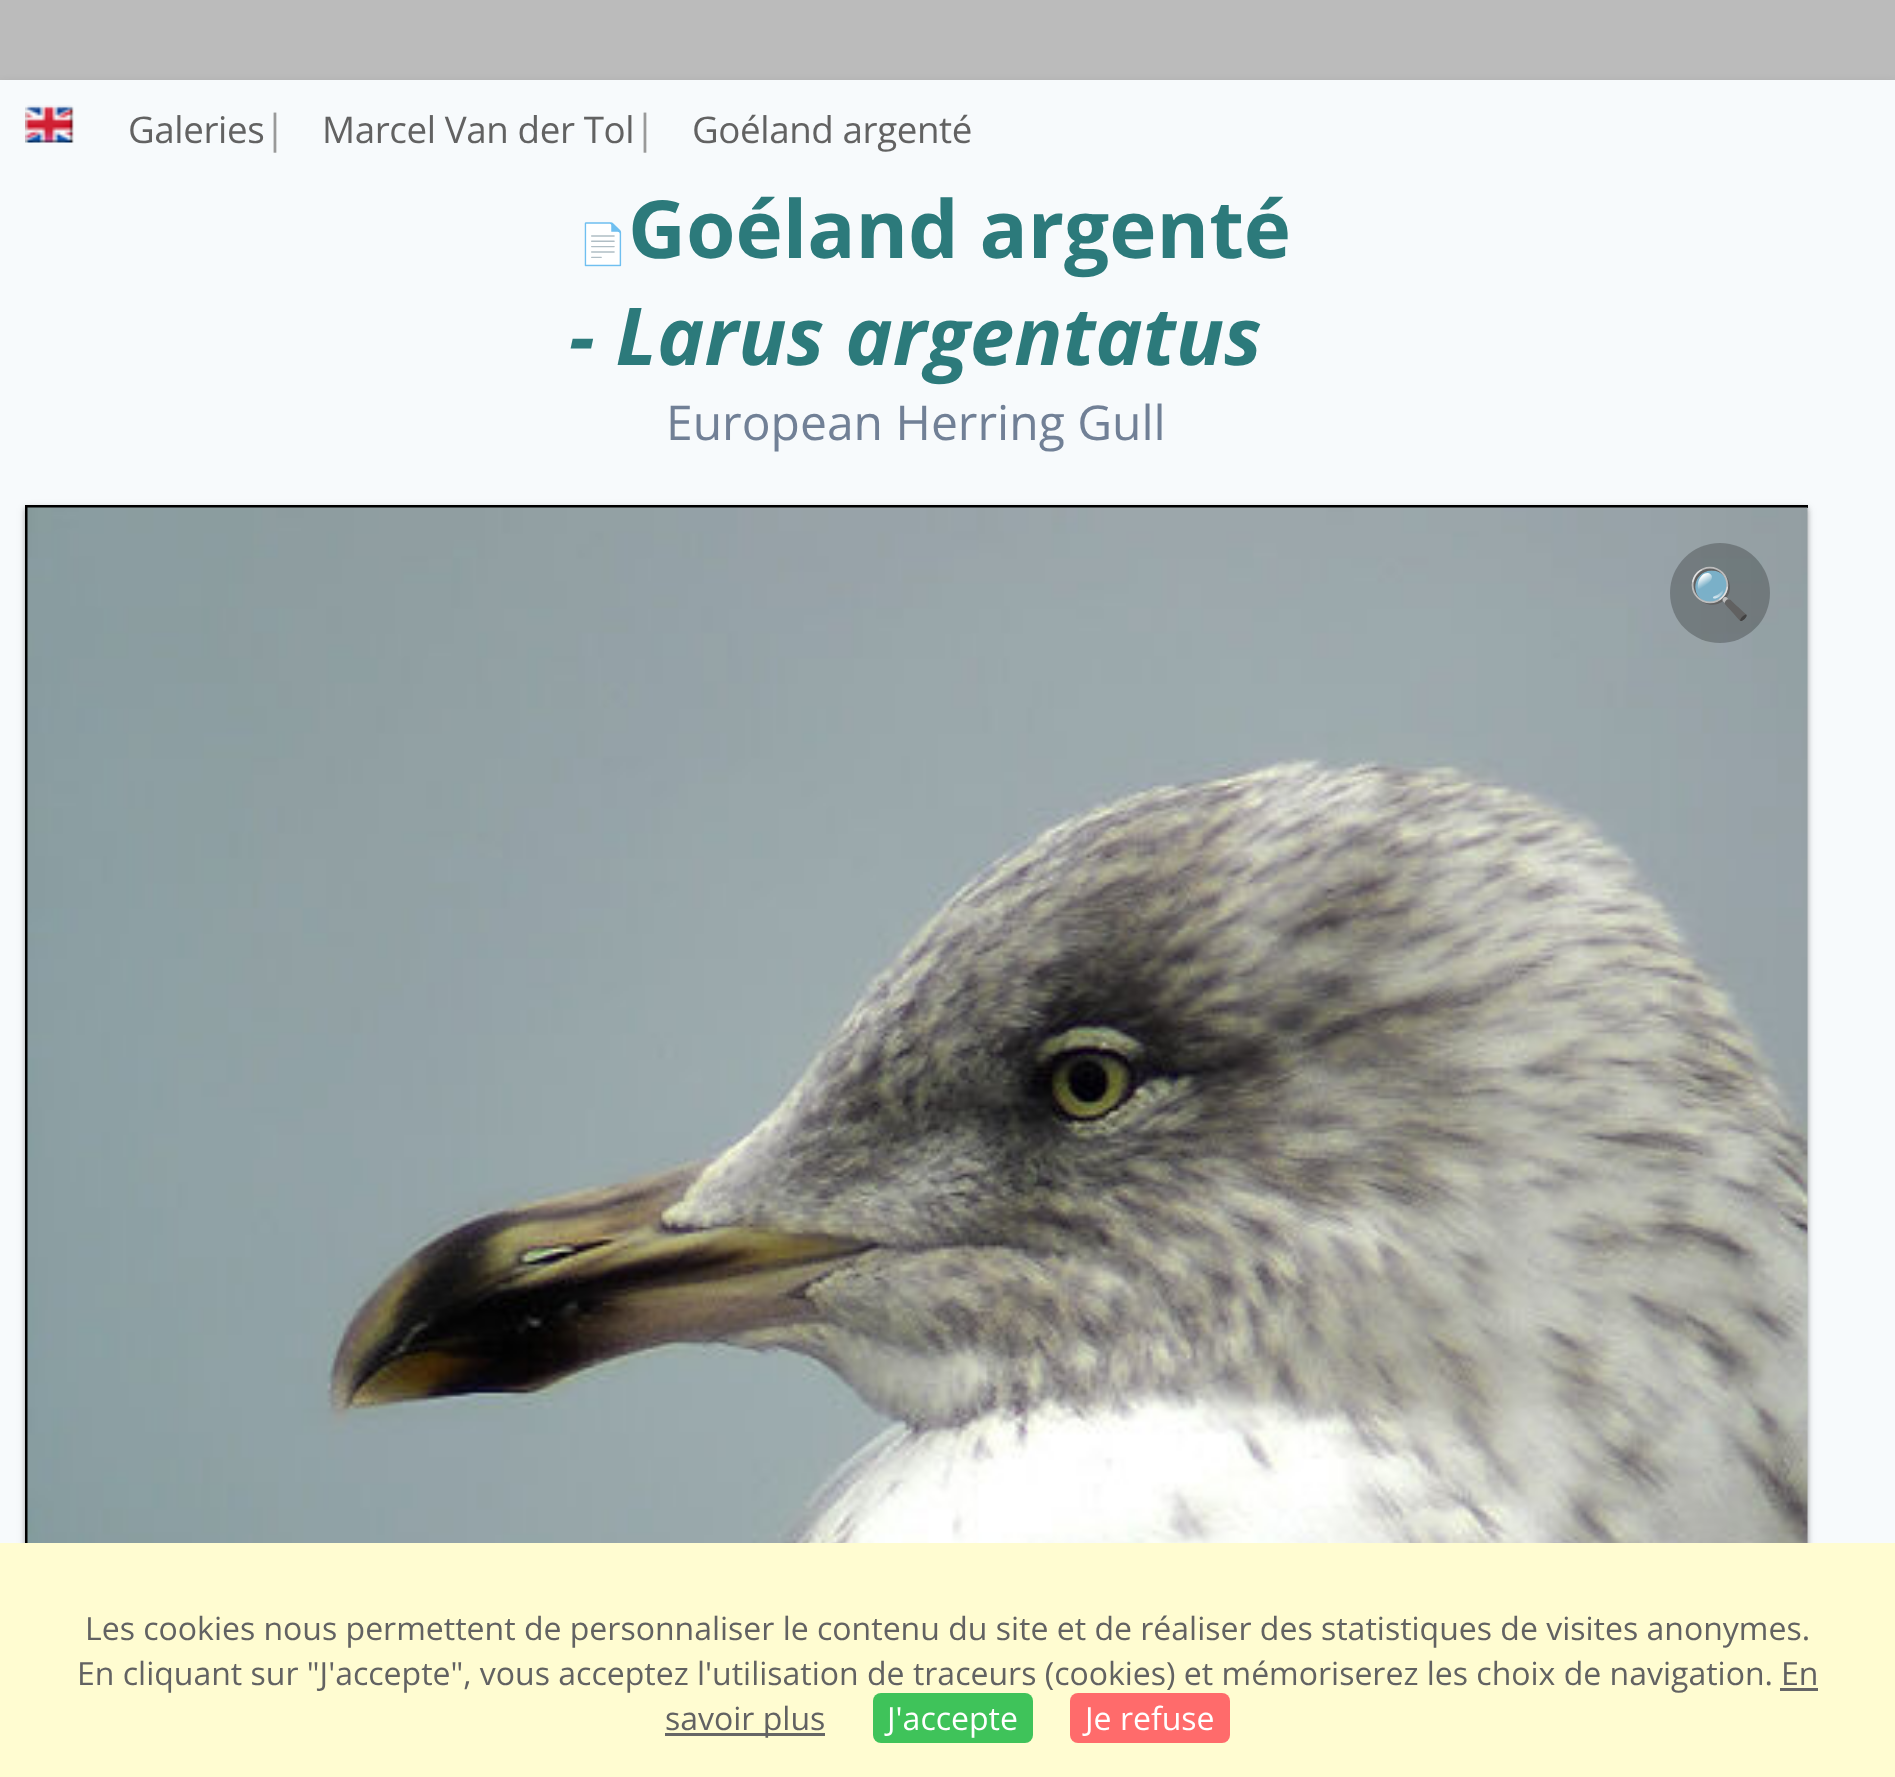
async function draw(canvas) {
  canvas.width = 1895;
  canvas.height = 1777;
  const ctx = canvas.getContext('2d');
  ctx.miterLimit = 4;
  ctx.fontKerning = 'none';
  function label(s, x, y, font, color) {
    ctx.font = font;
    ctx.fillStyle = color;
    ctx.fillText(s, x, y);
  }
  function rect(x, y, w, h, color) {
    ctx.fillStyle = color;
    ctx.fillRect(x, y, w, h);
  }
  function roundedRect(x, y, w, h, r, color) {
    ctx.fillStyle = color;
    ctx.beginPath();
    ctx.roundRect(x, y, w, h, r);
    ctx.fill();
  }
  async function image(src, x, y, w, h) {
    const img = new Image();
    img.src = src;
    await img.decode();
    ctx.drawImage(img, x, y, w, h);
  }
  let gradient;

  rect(0, 0, 1895, 1777, '#fff');
  gradient = ctx.createLinearGradient(947, 0, 948, 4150);
  gradient.addColorStop(0, '#bbb');
  gradient.addColorStop(0.15, '#bbb');
  gradient.addColorStop(0.27, '#ddd');
  gradient.addColorStop(0.9, '#fff');
  gradient.addColorStop(1, '#fff');
  ctx.fillStyle = gradient;
  ctx.fillRect(0, 0, 1895, 80);
  ctx.fillStyle = '#0000001f';
  ctx.filter = 'blur(4px)';
  ctx.beginPath();
  ctx.rect(0, 83, 1895, 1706);
  ctx.fill();
  ctx.filter = 'none';
  rect(0, 80, 1895, 1463, '#f7fafc');
  await image('assets/img1.png', 25, 105, 49, 38);
  ctx.letterSpacing = '-0.4px';
  label('Galeries', 128, 143, '36.75px Open Sans', '#626262');
  ctx.letterSpacing = '0px';
  label('|', 264, 143, '40px Open Sans', '#999');
  ctx.letterSpacing = '-0.4px';
  label('Marcel Van der Tol', 322, 143, '36.75px Open Sans', '#626262');
  ctx.letterSpacing = '0px';
  label('|', 634, 143, '40px Open Sans', '#999');
  ctx.letterSpacing = '-0.4px';
  label('Goéland argenté', 692, 143, '36.75px Open Sans', '#626262');
  ctx.letterSpacing = '0px';
  label('📄', 578, 258, '100 40px Noto Sans', '#2c7a7b');
  label('Goéland argenté', 628, 258, 'bold 80px Open Sans', '#2c7a7b');
  label('- Larus argentatus', 569, 365, 'italic bold 80px Open Sans', '#2c7a7b');
  label('European Herring Gull', 666, 440, '48px Open Sans', '#718096');
  ctx.fillStyle = '#0000003d';
  ctx.filter = 'blur(2.5px)';
  ctx.beginPath();
  ctx.rect(25, 508, 1783, 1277);
  ctx.fill();
  ctx.filter = 'none';
  ctx.fillStyle = '#0000001f';
  ctx.filter = 'blur(4px)';
  ctx.beginPath();
  ctx.rect(25, 508, 1783, 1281);
  ctx.fill();
  ctx.filter = 'none';
  ctx.save();
  ctx.beginPath();
  ctx.rect(25, 505, 1783, 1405);
  ctx.clip();
  ctx.strokeStyle = '#000';
  ctx.lineWidth = 3;
  ctx.strokeRect(26.5, 506.5, 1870, 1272);
  ctx.restore();
  await image('assets/img2.png', 27, 507, 1781, 1036);
  ctx.fillStyle = '#0000003d';
  ctx.beginPath();
  ctx.arc(1720, 593, 50, 0, 2 * Math.PI);
  ctx.fill();
  label('🔍', 1688, 611, '50px Noto Color Emoji', '#abb0b2');
  rect(0, 1543, 1895, 234, '#fffcd1');
  label('Les cookies nous permettent de personnaliser le contenu du site et de réaliser des statistiques de visites anonymes.', 85, 1640, '32px Open Sans', '#626262');
  label('En cliquant sur "J\'accepte", vous acceptez l\'utilisation de traceurs (cookies) et mémoriserez les choix de navigation.', 77, 1685, '32px Open Sans', '#626262');
  label('En', 1781, 1685, '32px Open Sans', '#626262');
  rect(1780, 1688, 38, 3, '#666');
  rect(665, 1733, 160, 3, '#666');
  label('savoir plus', 665, 1730, '32px Open Sans', '#626262');
  roundedRect(873, 1693, 160, 50, 8, '#3fc35a');
  label('J\'accepte', 887, 1730, '32px Open Sans', '#fff');
  roundedRect(1070, 1693, 160, 50, 8, '#ff6b6b');
  label('Je refuse', 1085, 1730, '32px Open Sans', '#fff');
}

draw(document.querySelector('canvas'));
